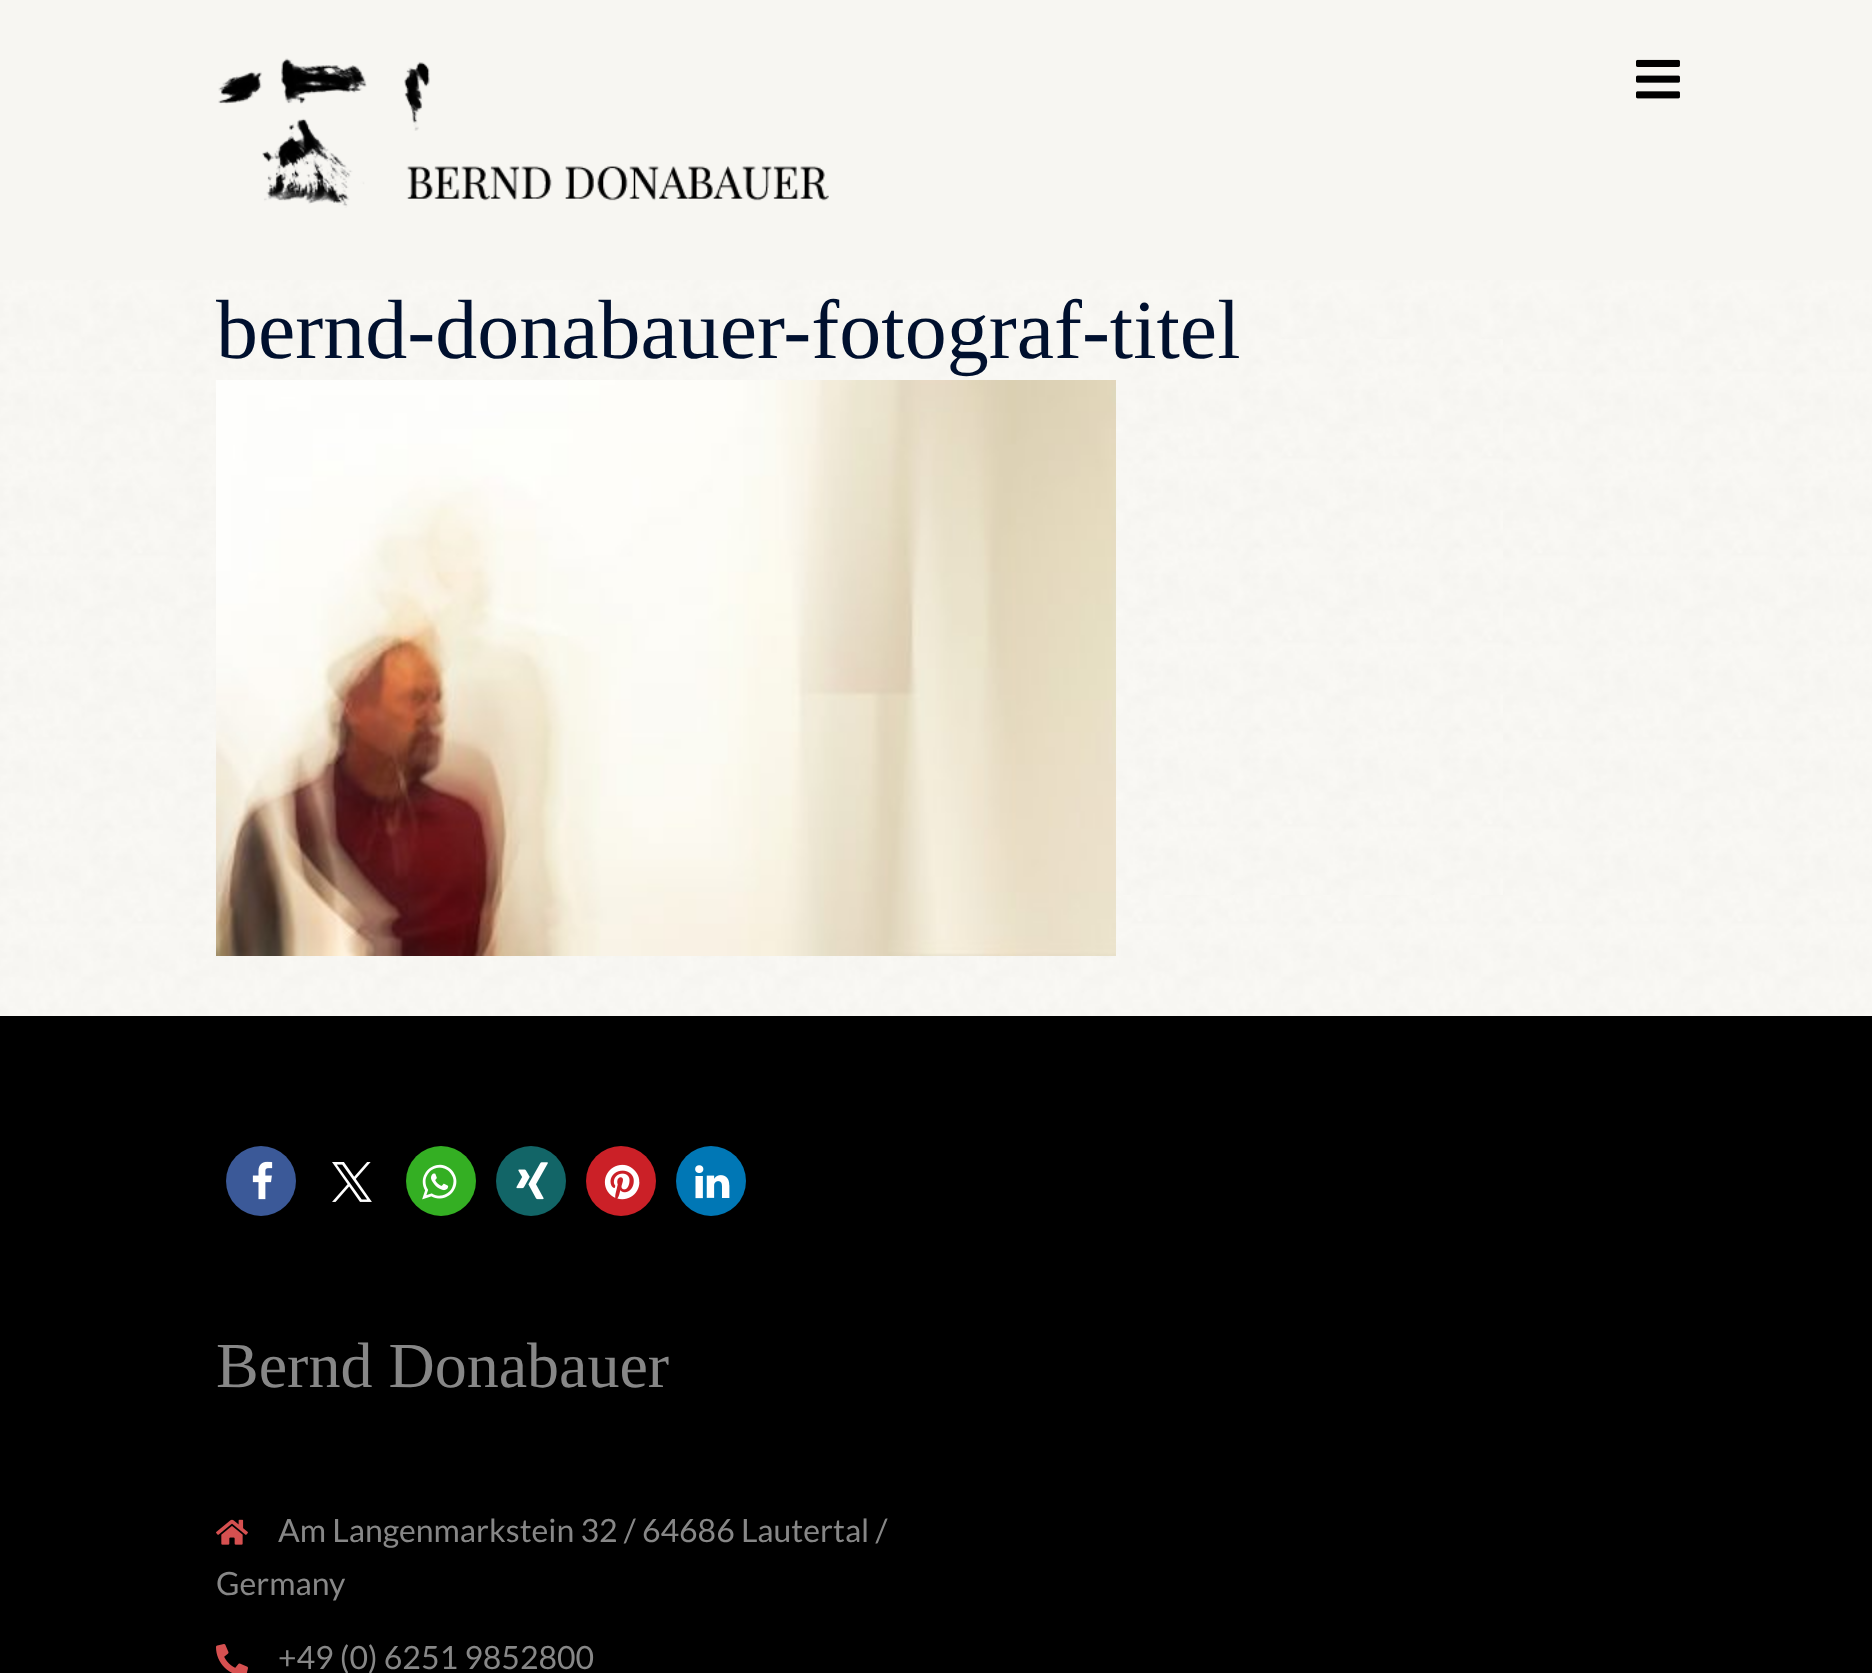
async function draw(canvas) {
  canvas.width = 1872;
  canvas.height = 1673;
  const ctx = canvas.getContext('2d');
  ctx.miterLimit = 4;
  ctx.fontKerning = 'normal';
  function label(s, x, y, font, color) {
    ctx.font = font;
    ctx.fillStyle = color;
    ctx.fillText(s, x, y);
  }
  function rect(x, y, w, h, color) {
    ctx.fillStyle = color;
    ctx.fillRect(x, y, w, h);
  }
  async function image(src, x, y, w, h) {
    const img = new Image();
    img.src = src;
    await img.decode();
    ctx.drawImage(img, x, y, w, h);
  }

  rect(0, 0, 1872, 1673, '#fff');
  await image('assets/img1.png', 0, 280, 1872, 736);
  rect(0, 0, 1872, 280, '#f7f6f2');
  await image('assets/img2.png', 218, 58, 611, 150);
  await image('assets/img3.png', 1636, 59, 44, 40);
  await image('assets/img4.png', 301, 339, 1202, 556);
  label('bernd-donabauer-fotograf-titel', 216, 358, '84px Liberation Serif', '#00102e');
  await image('assets/img5.png', 216, 380, 900, 576);
  rect(0, 1016, 1872, 657, '#000');
  ctx.fillStyle = '#3b5998';
  ctx.beginPath();
  ctx.arc(261, 1181, 35, 0, 2 * Math.PI);
  ctx.fill();
  await image('assets/img6.png', 252, 1161, 21, 39);
  await image('assets/img7.png', 332, 1162, 40, 40);
  ctx.fillStyle = '#34af23';
  ctx.beginPath();
  ctx.arc(441, 1181, 35, 0, 2 * Math.PI);
  ctx.fill();
  await image('assets/img8.png', 422, 1164, 35, 36);
  ctx.fillStyle = '#126567';
  ctx.beginPath();
  ctx.arc(531, 1181, 35, 0, 2 * Math.PI);
  ctx.fill();
  await image('assets/img9.png', 516, 1162, 32, 38);
  ctx.fillStyle = '#cb2027';
  ctx.beginPath();
  ctx.arc(621, 1181, 35, 0, 2 * Math.PI);
  ctx.fill();
  await image('assets/img10.png', 604, 1164, 36, 36);
  ctx.fillStyle = '#0077b5';
  ctx.beginPath();
  ctx.arc(711, 1181, 35, 0, 2 * Math.PI);
  ctx.fill();
  await image('assets/img11.png', 695, 1165, 35, 34);
  label('Bernd Donabauer', 216, 1387, '64px Liberation Serif', '#878787');
  await image('assets/img12.png', 216, 1519, 32, 26);
  label('Am Langenmarkstein 32 / 64686 Lautertal /', 278, 1542, '32px Lato', '#878787');
  label('Germany', 216, 1595, '32px Lato', '#878787');
  await image('assets/img13.png', 216, 1644, 32, 29);
  label('+49 (0) 6251 9852800', 278, 1669, '32px Lato', '#878787');
}

draw(document.querySelector('canvas'));
